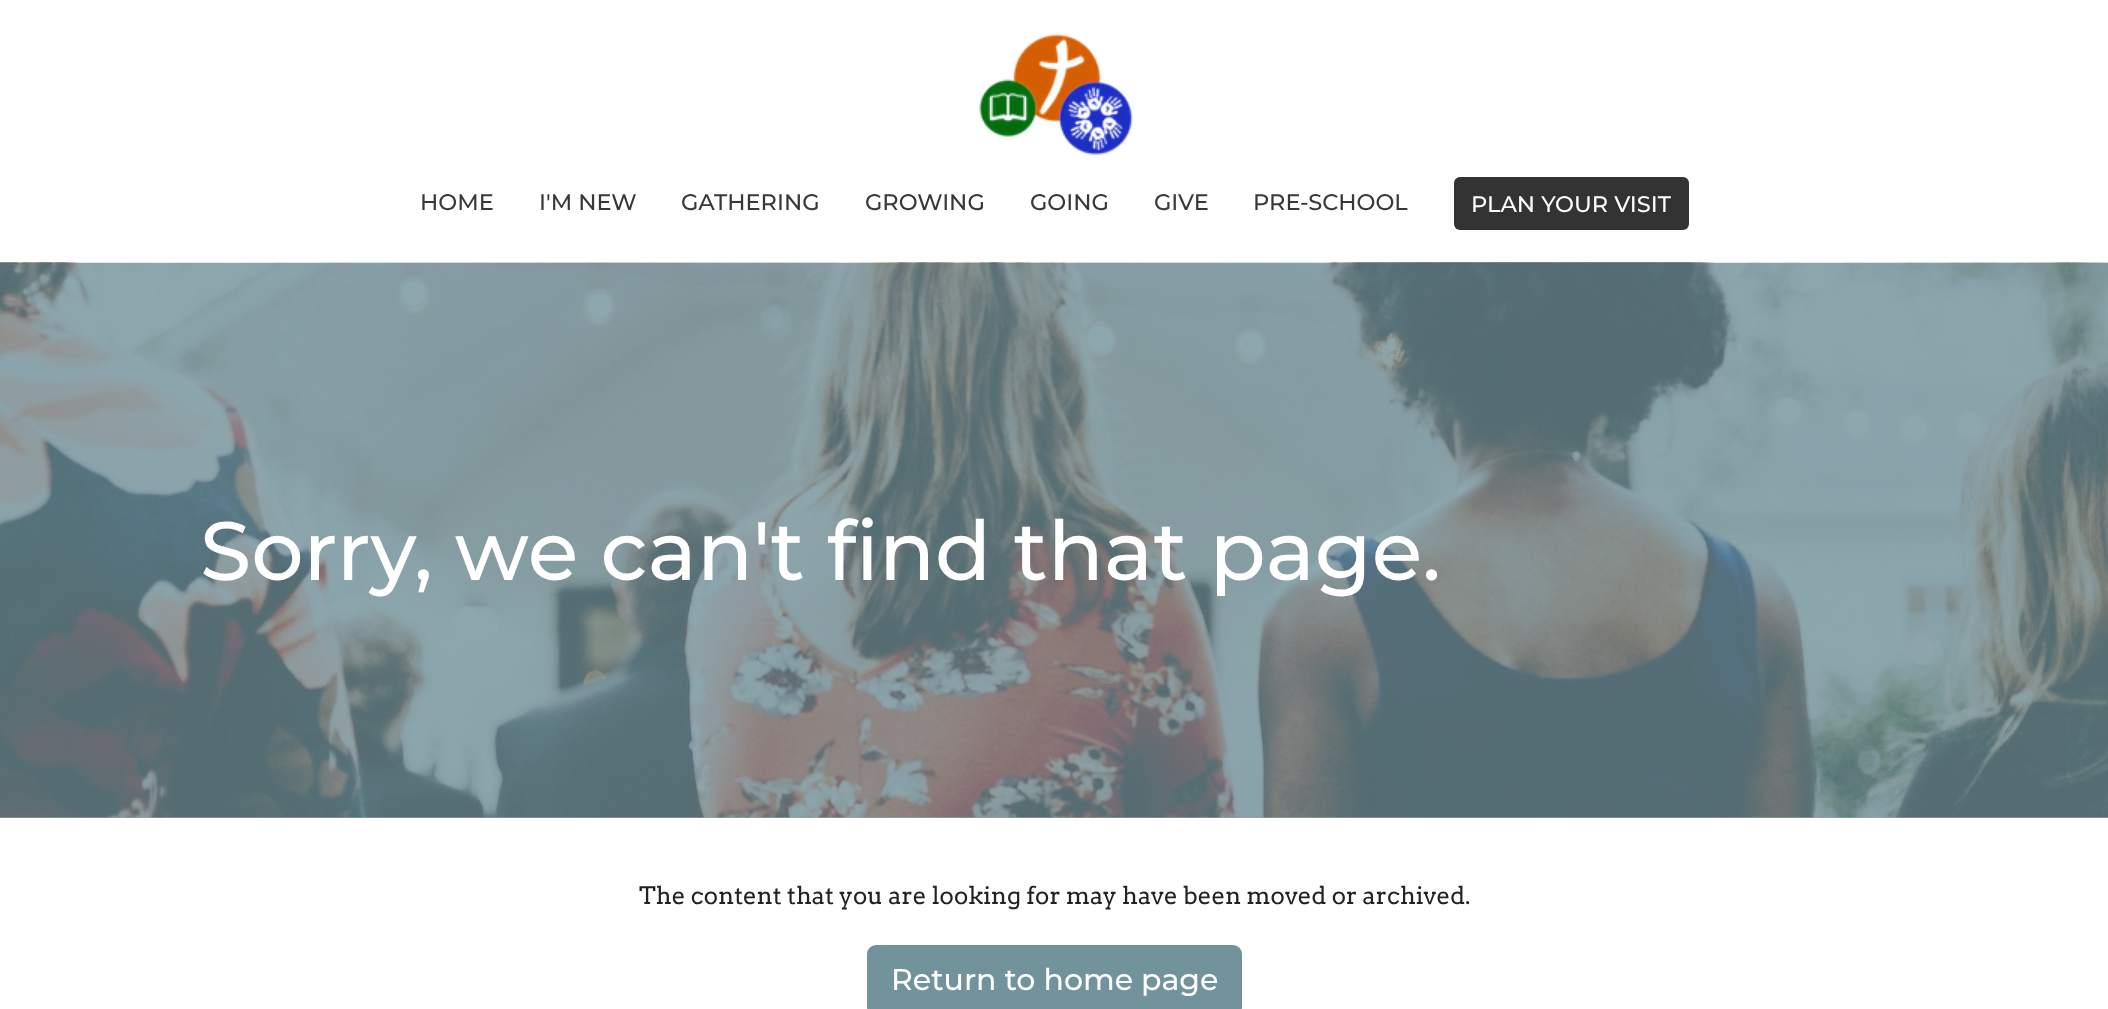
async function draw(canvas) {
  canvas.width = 2108;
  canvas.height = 1009;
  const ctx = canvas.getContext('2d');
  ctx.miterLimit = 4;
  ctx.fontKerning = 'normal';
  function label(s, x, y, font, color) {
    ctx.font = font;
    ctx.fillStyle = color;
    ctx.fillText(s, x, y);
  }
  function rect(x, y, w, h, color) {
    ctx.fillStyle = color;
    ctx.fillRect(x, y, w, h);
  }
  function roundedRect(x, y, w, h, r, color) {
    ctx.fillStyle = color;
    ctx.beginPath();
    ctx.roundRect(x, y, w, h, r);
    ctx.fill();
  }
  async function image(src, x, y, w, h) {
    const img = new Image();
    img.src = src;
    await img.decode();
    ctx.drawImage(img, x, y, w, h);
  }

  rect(0, 0, 2108, 1009, '#fff');
  rect(0, 817, 2108, 1, '#99b0b7');
  await image('assets/img1.png', 979, 34, 154, 121);
  label('HOME', 420, 210, '500 22.5px Montserrat', '#383838');
  label('I\'M NEW', 539, 210, '500 22.5px Montserrat', '#383838');
  label('GATHERING', 681, 210, '500 22.5px Montserrat', '#383838');
  label('GROWING', 865, 210, '500 22.5px Montserrat', '#383838');
  label('GOING', 1030, 210, '500 22.5px Montserrat', '#383838');
  label('GIVE', 1154, 210, '500 22.5px Montserrat', '#383838');
  label('PRE-SCHOOL', 1253, 210, '500 22.5px Montserrat', '#383838');
  roundedRect(1454, 177, 235, 53, 6, '#333');
  label('PLAN YOUR VISIT', 1471, 212, '500 22.5px Montserrat', '#fff');
  await image('assets/img2.png', 0, 262, 2108, 556);
  label('Sorry, we can\'t find that page.', 200, 580, '500 82.5px Montserrat', '#fff');
  label('The content that you are looking for may have been moved or archived.', 639, 904, '24px Arvo', '#222');
  roundedRect(867, 945, 375, 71, 9, '#73939c');
  label('Return to home page', 891, 990, '500 30px Montserrat', '#fff');
}

draw(document.querySelector('canvas'));
